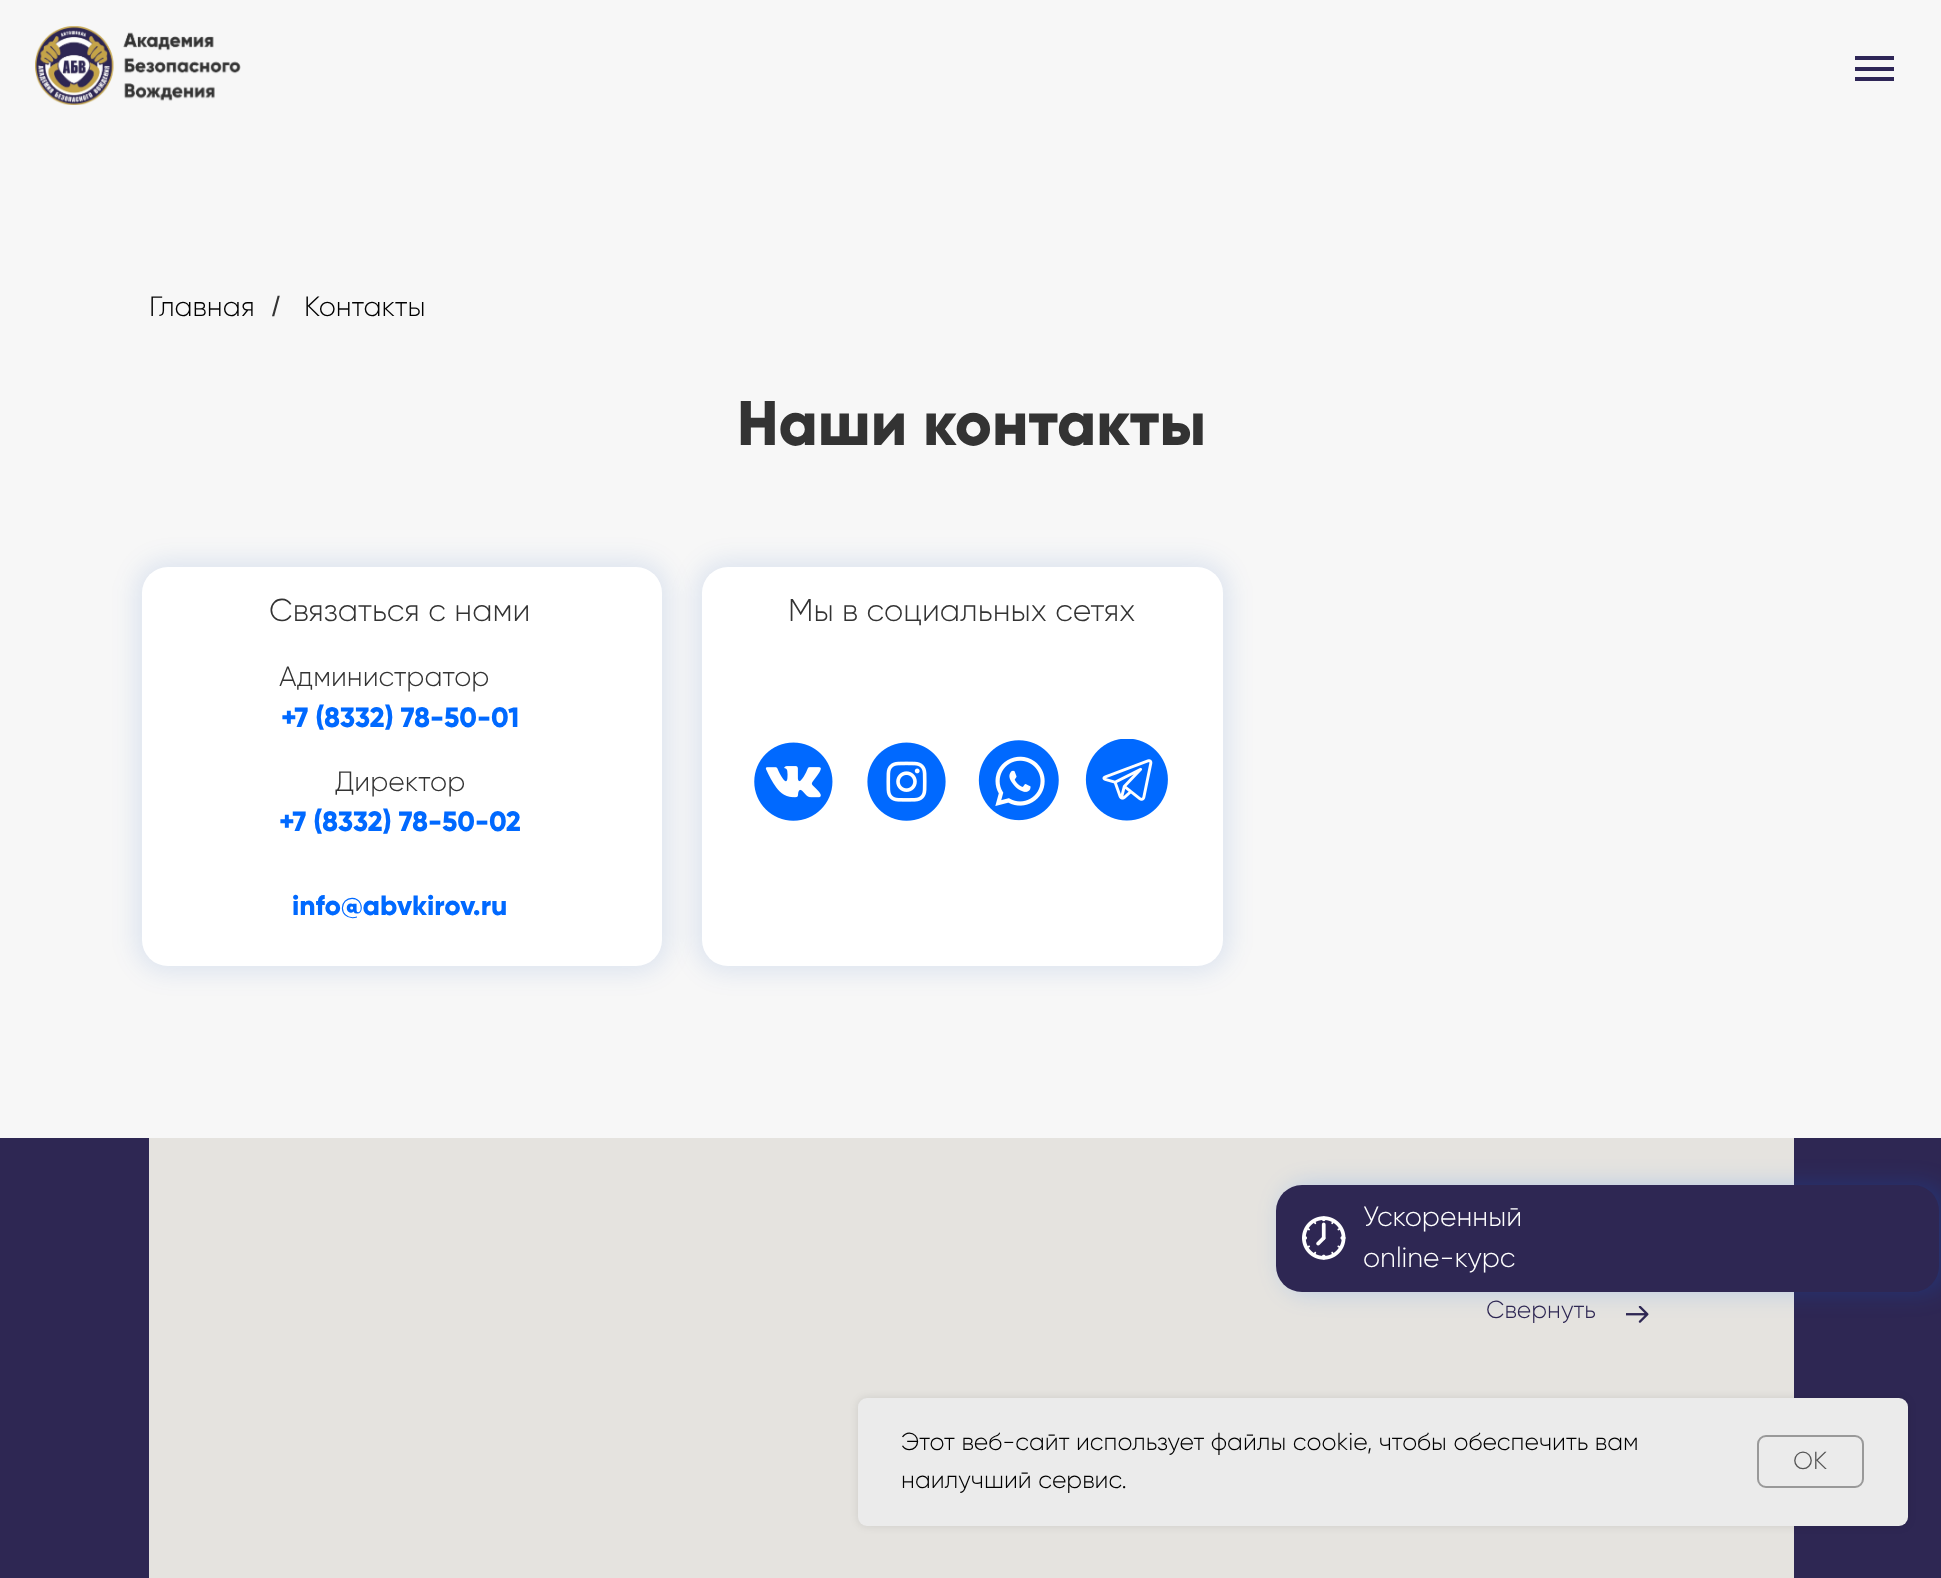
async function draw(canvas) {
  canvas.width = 1941;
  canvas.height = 1578;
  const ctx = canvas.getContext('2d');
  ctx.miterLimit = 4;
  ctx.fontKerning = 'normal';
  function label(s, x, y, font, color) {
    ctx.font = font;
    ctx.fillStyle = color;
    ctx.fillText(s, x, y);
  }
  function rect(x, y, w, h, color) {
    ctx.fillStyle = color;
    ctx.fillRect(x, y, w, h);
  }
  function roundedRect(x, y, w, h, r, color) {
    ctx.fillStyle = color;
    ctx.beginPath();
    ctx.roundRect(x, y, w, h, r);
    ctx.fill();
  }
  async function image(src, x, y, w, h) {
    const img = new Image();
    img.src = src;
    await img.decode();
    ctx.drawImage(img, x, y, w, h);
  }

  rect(0, 0, 1941, 1578, '#f7f7f7');
  label('Главная', 149, 316, '300 28px Gilroy', '#000');
  label('/', 272, 316, '28px Liberation Sans', '#333');
  label('Контакты', 304, 316, '300 28px Gilroy', '#000');
  label('Наши контакты', 737, 445, '800 63px Gilroy', '#333');
  ctx.fillStyle = '#0047ac1a';
  ctx.filter = 'blur(12px)';
  ctx.beginPath();
  ctx.roundRect(135, 560, 534, 413, 33);
  ctx.fill();
  ctx.filter = 'none';
  roundedRect(142, 567, 520, 399, 26, '#fff');
  ctx.fillStyle = '#0047ac1a';
  ctx.filter = 'blur(12px)';
  ctx.beginPath();
  ctx.roundRect(695, 560, 535, 413, 33);
  ctx.fill();
  ctx.filter = 'none';
  roundedRect(702, 567, 521, 399, 26, '#fff');
  label('Связаться с нами', 269, 621, '300 31.5px Gilroy', '#333');
  label('Мы в социальных сетях', 788, 621, '300 31.5px Gilroy', '#333');
  label('Администратор', 279, 686, '300 28px Gilroy', '#333');
  label('+7 (8332) 78-50-01', 281, 727, '800 28px Gilroy', '#0069ff');
  label('Директор', 335, 791, '300 28px Gilroy', '#333');
  await image('assets/img1.png', 754, 742, 79, 79);
  await image('assets/img2.png', 867, 742, 79, 79);
  await image('assets/img3.png', 978, 740, 81, 81);
  await image('assets/img4.png', 1085, 739, 83, 82);
  label('+7 (8332) 78-50-02', 279, 831, '800 28px Gilroy', '#0069ff');
  label('info@abvkirov.ru', 292, 915, '800 28px Gilroy', '#0069ff');
  rect(0, 1138, 1941, 440, '#2e2753');
  rect(149, 1138, 1645, 440, '#e5e3df');
  ctx.fillStyle = '#0069ff33';
  ctx.filter = 'blur(12px)';
  ctx.beginPath();
  ctx.roundRect(1283, 1185, 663, 107, 26);
  ctx.fill();
  ctx.filter = 'none';
  roundedRect(1276, 1185, 663, 107, 26, '#2e2753');
  await image('assets/img5.png', 1302, 1216, 44, 44);
  label('Ускоренный', 1363, 1226, '300 28px Gilroy', '#fff');
  label('online-курс', 1363, 1267, '300 28px Gilroy', '#fff');
  label('Свернуть', 1486, 1318, '300 24.5px Gilroy', '#2e2753');
  await image('assets/img6.png', 1626, 1306, 23, 17);
  await image('assets/img7.png', 35, 26, 206, 79);
  rect(1855, 56, 39, 4, '#2e2657');
  rect(1855, 67, 39, 4, '#2e2657');
  rect(1855, 77, 39, 4, '#2e2657');
  ctx.fillStyle = '#0000001a';
  ctx.filter = 'blur(4.5px)';
  ctx.beginPath();
  ctx.roundRect(858, 1398, 1050, 128, 9);
  ctx.fill();
  ctx.filter = 'none';
  roundedRect(858, 1398, 1050, 128, 9, '#ebebeb');
  label('Этот веб-сайт использует файлы cookie, чтобы обеспечить вам', 901, 1450, '300 24.5px Gilroy', '#000');
  label('наилучший сервис.', 901, 1488, '300 24.5px Gilroy', '#000');
  ctx.beginPath();
  ctx.roundRect(1758, 1436, 105, 51, 8);
  ctx.strokeStyle = '#999';
  ctx.lineWidth = 2;
  ctx.stroke();
  label('OK', 1793, 1469, '300 24.5px Gilroy', '#555');
}

draw(document.querySelector('canvas'));
